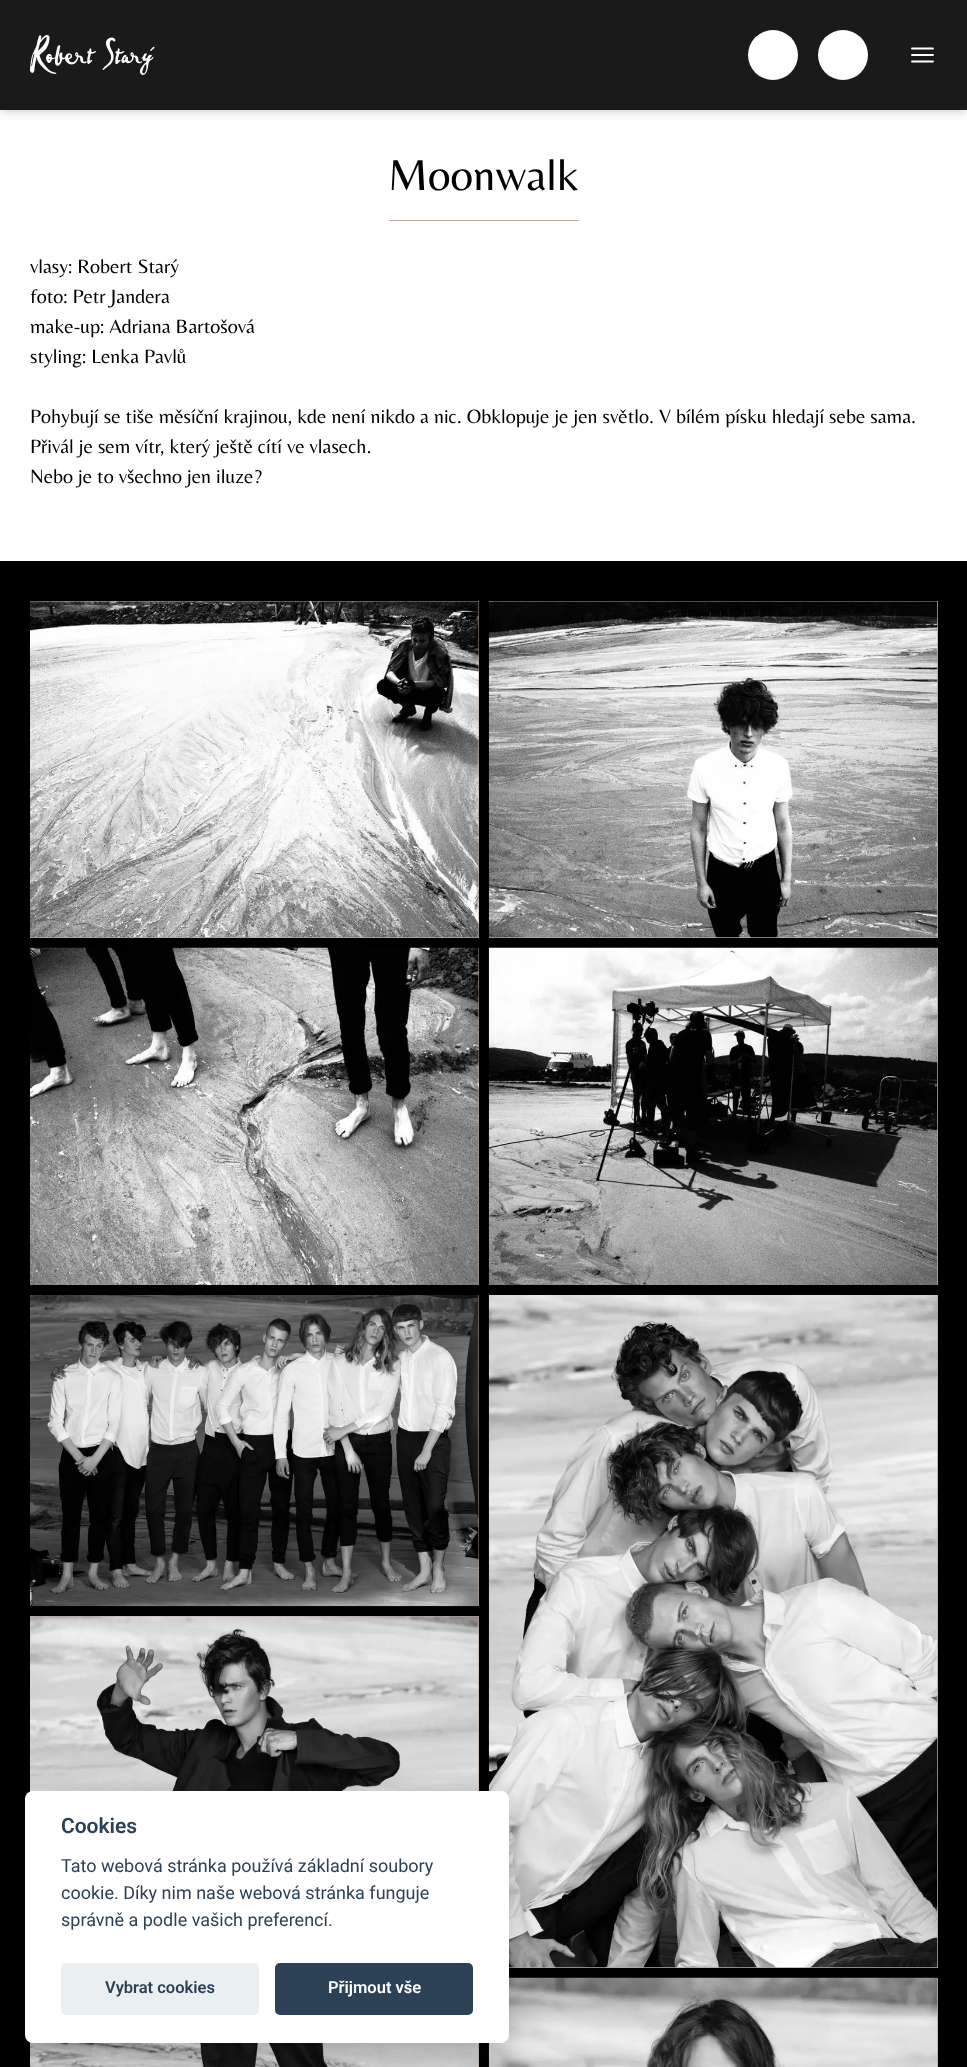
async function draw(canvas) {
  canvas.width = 967;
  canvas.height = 2067;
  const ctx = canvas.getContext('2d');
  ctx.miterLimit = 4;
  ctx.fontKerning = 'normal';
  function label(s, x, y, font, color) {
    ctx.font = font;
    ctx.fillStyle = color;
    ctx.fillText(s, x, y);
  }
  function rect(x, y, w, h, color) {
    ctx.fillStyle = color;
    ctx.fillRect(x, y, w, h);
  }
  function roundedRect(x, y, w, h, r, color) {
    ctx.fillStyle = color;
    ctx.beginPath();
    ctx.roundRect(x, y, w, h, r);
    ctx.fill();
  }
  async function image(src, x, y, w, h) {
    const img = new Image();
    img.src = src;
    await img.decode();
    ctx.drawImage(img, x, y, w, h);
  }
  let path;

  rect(0, 0, 967, 2067, '#fff');
  ctx.fillStyle = '#0000001a';
  ctx.filter = 'blur(2.5px)';
  ctx.beginPath();
  ctx.rect(3, 5, 962, 105);
  ctx.fill();
  ctx.filter = 'none';
  ctx.filter = 'blur(4px)';
  ctx.beginPath();
  ctx.rect(1, 6, 965, 108);
  ctx.fill();
  ctx.filter = 'none';
  rect(0, 0, 967, 110, '#1a1a1a');
  await image('assets/img1.png', 30, 35, 125, 40);
  ctx.fillStyle = '#fff';
  ctx.beginPath();
  ctx.arc(773, 55, 25, 0, 2 * Math.PI);
  ctx.fill();
  ctx.beginPath();
  ctx.arc(843, 55, 25, 0, 2 * Math.PI);
  ctx.fill();
  path = new Path2D('M912 48.5H933M912 55H933M912 61.5H933');
  ctx.strokeStyle = '#fff';
  ctx.lineWidth = 1.9;
  ctx.lineCap = 'round';
  ctx.lineJoin = 'round';
  ctx.stroke(path);
  label('Moonwalk', 388, 190, '45px Belleza', '#000');
  rect(389, 220, 190, 1, '#bea899');
  label('vlasy: Robert Starý', 30, 273, '20px Belleza', '#000');
  label('foto: Petr Jandera', 30, 303, '20px Belleza', '#000');
  label('make-up: Adriana Bartošová', 30, 333, '20px Belleza', '#000');
  label('styling: Lenka Pavlů', 30, 363, '20px Belleza', '#000');
  label('Pohybují se tiše měsíční krajinou, kde není nikdo a nic. Obklopuje je jen světlo. V bílém písku hledají sebe sama.', 30, 423, '20px Belleza', '#000');
  label('Přivál je sem vítr, který ještě cítí ve vlasech.', 30, 453, '20px Belleza', '#000');
  label('Nebo je to všechno jen iluze?', 30, 483, '20px Belleza', '#000');
  rect(0, 561, 967, 1506, '#000');
  rect(30, 601, 449, 337, '#bea899');
  await image('assets/img2.png', 30, 601, 449, 337);
  rect(478, 948, 1, 337, '#bea899');
  await image('assets/img3.png', 30, 947, 449, 338);
  rect(478, 1295, 1, 311, '#bea899');
  await image('assets/img4.png', 30, 1295, 449, 312);
  rect(30, 1616, 449, 451, '#bea899');
  await image('assets/img5.png', 30, 1616, 449, 451);
  rect(489, 601, 449, 337, '#bea899');
  await image('assets/img6.png', 488, 601, 450, 337);
  rect(937, 948, 1, 337, '#bea899');
  await image('assets/img7.png', 488, 947, 450, 338);
  rect(509, 1295, 429, 673, '#bea899');
  await image('assets/img8.png', 488, 1295, 450, 673);
  rect(937, 1978, 1, 89, '#bea899');
  await image('assets/img9.png', 488, 1977, 450, 90);
  ctx.fillStyle = '#02020347';
  ctx.filter = 'blur(19px)';
  ctx.beginPath();
  ctx.roundRect(25, 1804, 484, 251, 8);
  ctx.fill();
  ctx.filter = 'none';
  roundedRect(25, 1791, 484, 252, 8, '#fff');
  label('Cookies', 61, 1833, '600 21px Roboto', '#2d4156');
  label('Tato webová stránka používá základní soubory', 61, 1872, '18px Roboto', '#2d4156');
  label('cookie. Díky nim naše webová stránka funguje', 61, 1899, '18px Roboto', '#2d4156');
  label('správně a podle vašich preferencí.', 61, 1926, '18px Roboto', '#2d4156');
  roundedRect(61, 1963, 198, 52, 5, '#eaeff2');
  label('Vybrat cookies', 105, 1993, '600 16.5px Roboto', '#2d4156');
  roundedRect(275, 1963, 198, 52, 5, '#2d4156');
  label('Přijmout vše', 328, 1993, '600 16.5px Roboto', '#fff');
}

draw(document.querySelector('canvas'));
